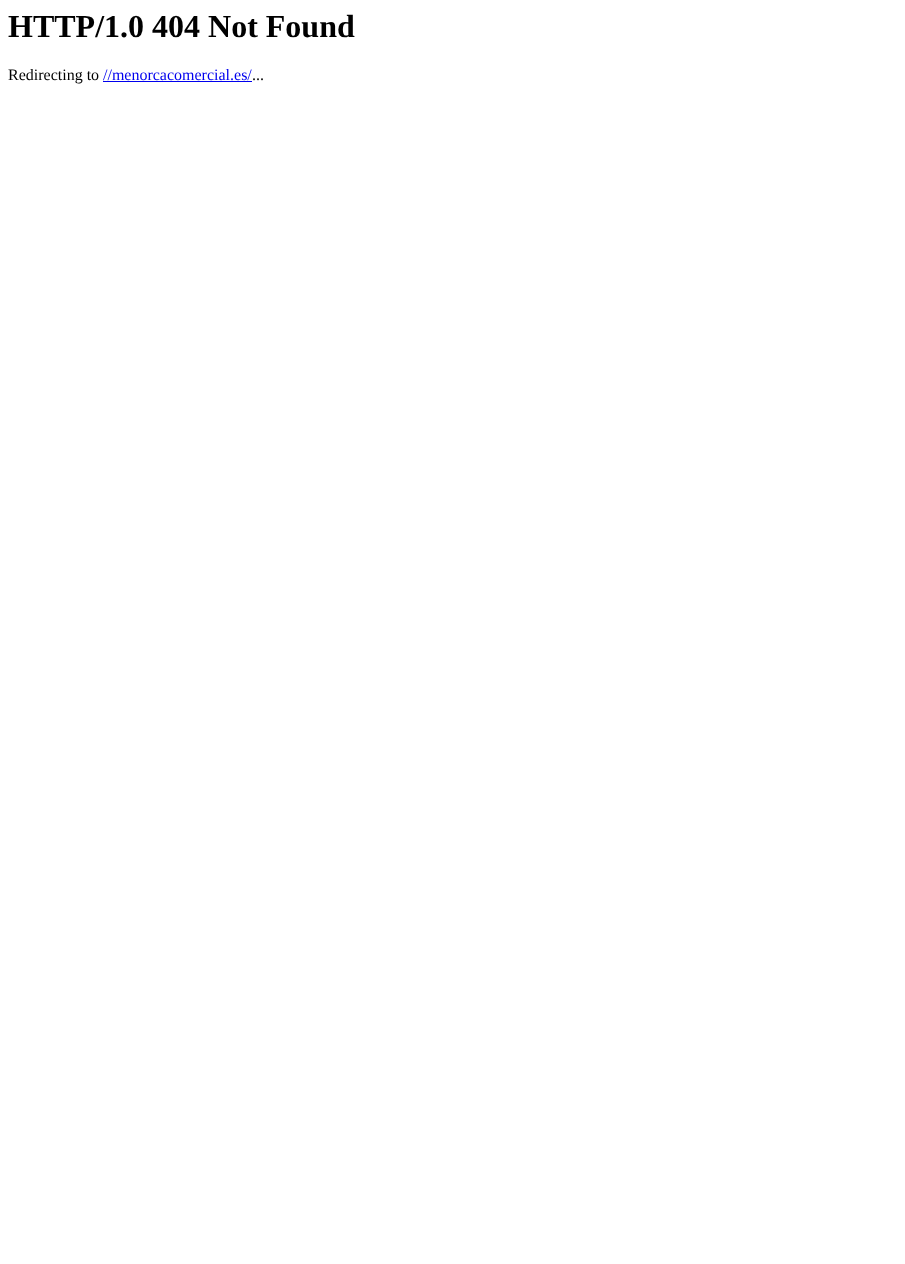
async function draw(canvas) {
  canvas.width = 905;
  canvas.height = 1264;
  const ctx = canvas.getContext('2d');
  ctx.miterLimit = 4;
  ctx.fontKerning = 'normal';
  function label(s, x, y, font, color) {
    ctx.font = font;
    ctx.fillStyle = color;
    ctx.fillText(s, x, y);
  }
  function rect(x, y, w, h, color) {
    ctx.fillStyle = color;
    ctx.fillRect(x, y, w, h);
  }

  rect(0, 0, 905, 1264, '#fff');
  label('HTTP/1.0 404 Not Found', 8, 37, 'bold 32px Liberation Serif', '#000');
  label('Redirecting to', 8, 80, '16px Liberation Serif', '#000');
  label('//menorcacomercial.es/', 103, 80, '16px Liberation Serif', '#00e');
  rect(103, 81, 149, 1, '#00e');
  label('...', 252, 80, '16px Liberation Serif', '#000');
}

draw(document.querySelector('canvas'));
